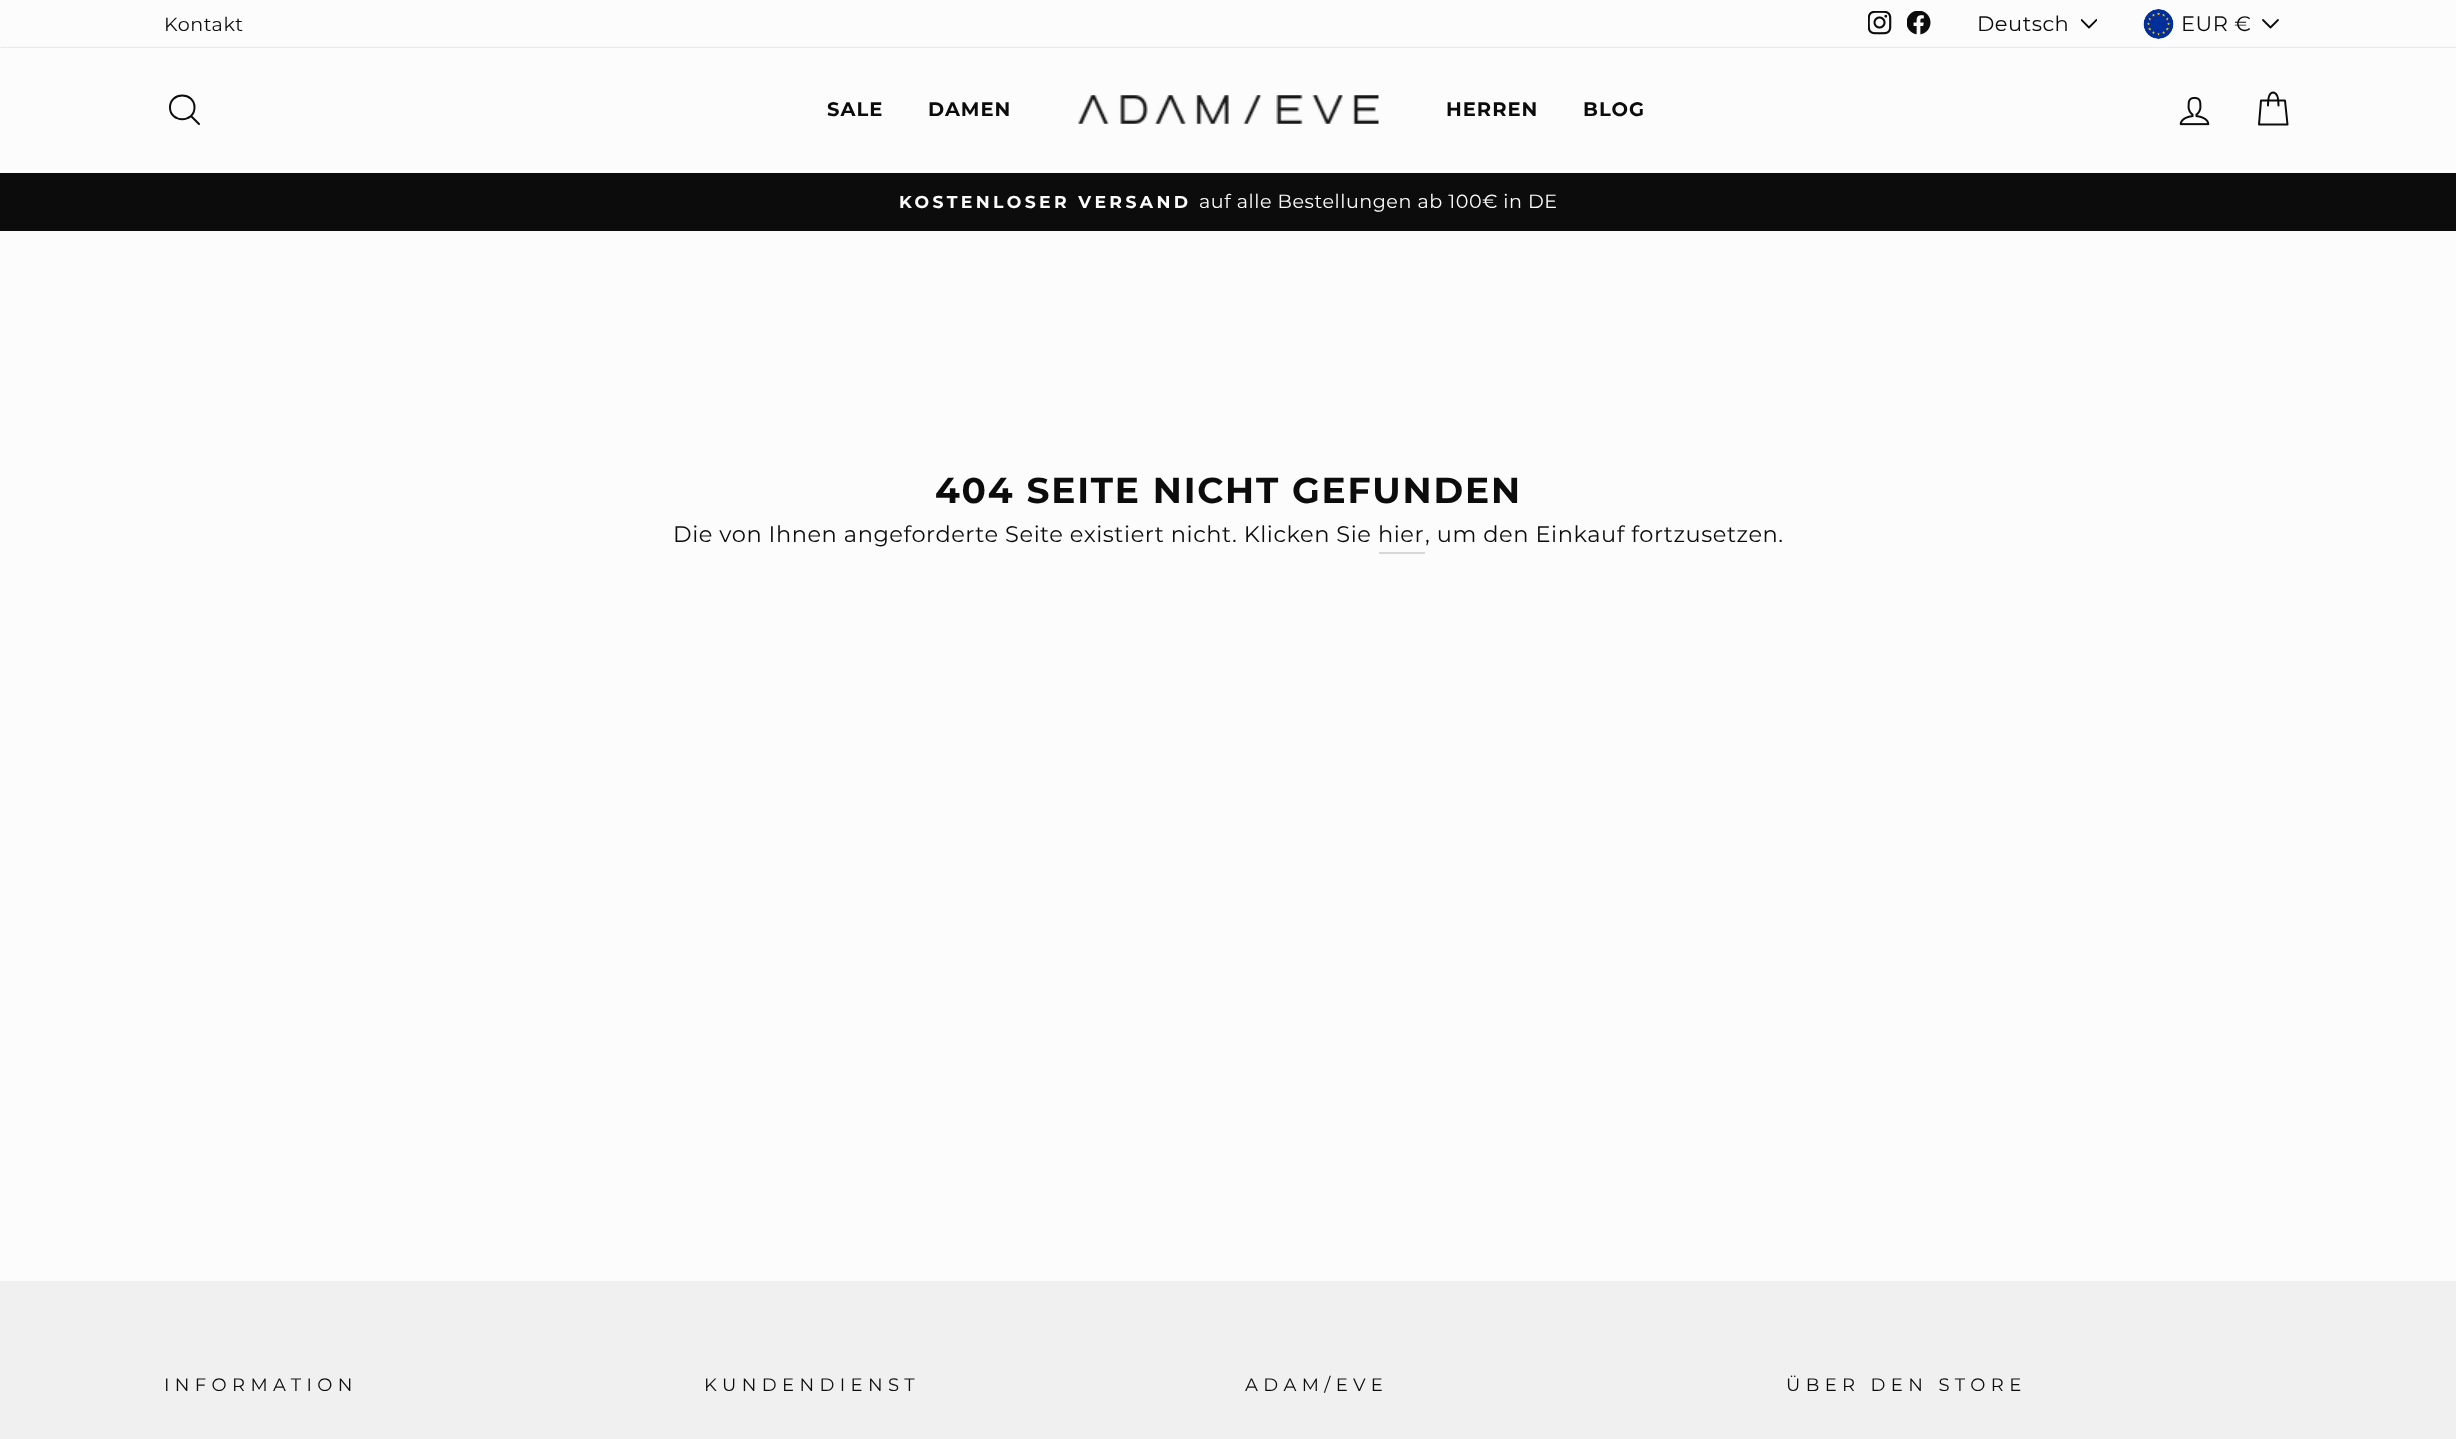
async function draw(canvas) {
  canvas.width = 2456;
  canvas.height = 1439;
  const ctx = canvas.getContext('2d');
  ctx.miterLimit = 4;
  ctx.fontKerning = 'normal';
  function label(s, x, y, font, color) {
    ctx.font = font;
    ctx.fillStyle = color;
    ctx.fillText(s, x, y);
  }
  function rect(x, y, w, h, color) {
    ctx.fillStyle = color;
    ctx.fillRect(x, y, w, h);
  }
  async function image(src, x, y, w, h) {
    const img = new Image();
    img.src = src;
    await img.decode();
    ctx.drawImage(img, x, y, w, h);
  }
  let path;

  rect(0, 0, 2456, 1439, '#fcfcfc');
  ctx.letterSpacing = '0.55px';
  label('Kontakt', 164, 31, '19.1px Montserrat', '#0c0c0c');
  await image('assets/img1.png', 1868, 11, 24, 24);
  await image('assets/img2.png', 1907, 11, 24, 24);
  ctx.letterSpacing = '0.5px';
  label('Deutsch', 1977, 31, '21px Montserrat', '#0c0c0c');
  ctx.save();
  ctx.beginPath();
  ctx.rect(2081, 17, 16, 16);
  ctx.clip();
  path = new Path2D('M2081.5 20L2089 27.5L2096.5 20');
  ctx.strokeStyle = '#0c0c0c';
  ctx.lineWidth = 1.8;
  ctx.lineCap = 'round';
  ctx.lineJoin = 'round';
  ctx.stroke(path);
  ctx.restore();
  await image('assets/img3.png', 2143, 9, 31, 30);
  label('EUR €', 2181, 31, '21px Montserrat', '#0c0c0c');
  path = new Path2D('M2263 20L2270.5 27.5L2278 20');
  ctx.strokeStyle = '#0c0c0c';
  ctx.lineWidth = 1.8;
  ctx.lineCap = 'round';
  ctx.lineJoin = 'round';
  ctx.stroke(path);
  rect(0, 173, 2456, 58, '#0c0c0c');
  ctx.fillStyle = '#00000033';
  ctx.filter = 'blur(1px)';
  ctx.beginPath();
  ctx.rect(0, 48, 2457, 125);
  ctx.fill();
  ctx.filter = 'none';
  rect(0, 48, 2456, 125, '#fcfcfc');
  path = new Path2D('M194.5 107.5C194.5 123 170 123 170 107.5C170 91.5 194.5 91.5 194.5 107.5ZM199 124L191 116');
  ctx.lineWidth = 2;
  ctx.stroke(path);
  ctx.letterSpacing = '1px';
  label('SALE', 827, 116, 'bold 19.5px Montserrat', '#0c0c0c');
  label('DAMEN', 928, 116, 'bold 19.5px Montserrat', '#0c0c0c');
  await image('assets/img4.png', 1078, 95, 301, 29);
  label('HERREN', 1446, 116, 'bold 19.5px Montserrat', '#0c0c0c');
  label('BLOG', 1583, 116, 'bold 19.5px Montserrat', '#0c0c0c');
  await image('assets/img5.png', 2179, 96, 31, 30);
  path = new Path2D('M2268 105.5C2268 95 2270 92.5 2273 92.5C2276 92.5 2278.5 95 2278.5 105.5M2261 100.5H2285L2287.5 124.5H2259Z');
  ctx.stroke(path);
  ctx.letterSpacing = '3.4px';
  label('KOSTENLOSER VERSAND', 899, 208, 'bold 17.25px Montserrat', '#fcfcfc');
  ctx.letterSpacing = '0.55px';
  label('auf alle Bestellungen ab 100€ in DE', 1199, 208, '19.1px Montserrat', '#fcfcfc');
  ctx.letterSpacing = '1.8px';
  label('404 SEITE NICHT GEFUNDEN', 935, 503, 'bold 36px Montserrat', '#0c0c0c');
  ctx.letterSpacing = '0.55px';
  label('Die von Ihnen angeforderte Seite existiert nicht. Klicken Sie hier', 673, 542, '22.5px Montserrat', '#0c0c0c');
  label(', um den Einkauf fortzusetzen.', 1425, 542, '22.5px Montserrat', '#0c0c0c');
  rect(1379, 552, 46, 2, '#d8d8d8');
  rect(0, 1281, 2456, 158, '#f0f0f0');
  ctx.letterSpacing = '5.4px';
  label('INFORMATION', 164, 1391, '18px Montserrat', '#0c0c0c');
  label('KUNDENDIENST', 704, 1391, '18px Montserrat', '#0c0c0c');
  label('ADAM/EVE', 1245, 1391, '18px Montserrat', '#0c0c0c');
  label('ÜBER DEN STORE', 1786, 1391, '18px Montserrat', '#0c0c0c');
}

draw(document.querySelector('canvas'));
